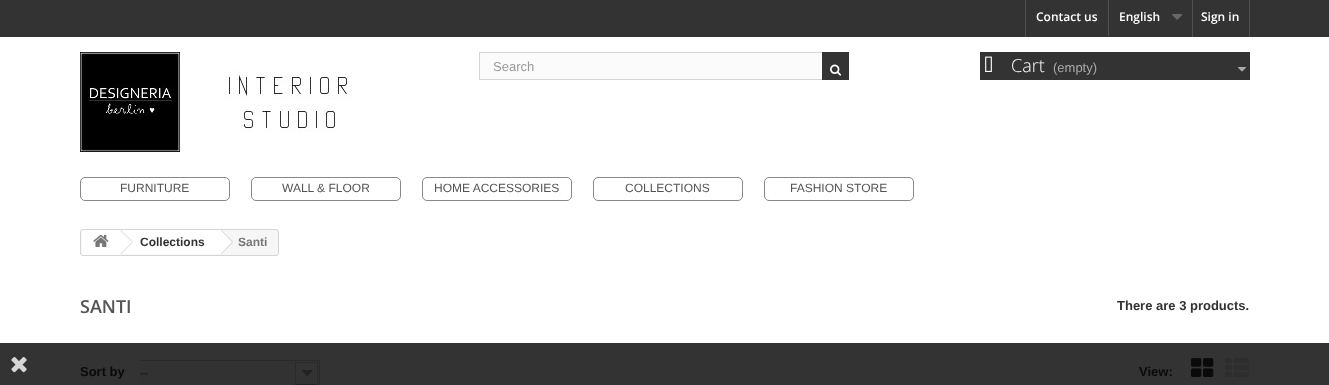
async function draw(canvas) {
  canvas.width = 1329;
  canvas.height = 385;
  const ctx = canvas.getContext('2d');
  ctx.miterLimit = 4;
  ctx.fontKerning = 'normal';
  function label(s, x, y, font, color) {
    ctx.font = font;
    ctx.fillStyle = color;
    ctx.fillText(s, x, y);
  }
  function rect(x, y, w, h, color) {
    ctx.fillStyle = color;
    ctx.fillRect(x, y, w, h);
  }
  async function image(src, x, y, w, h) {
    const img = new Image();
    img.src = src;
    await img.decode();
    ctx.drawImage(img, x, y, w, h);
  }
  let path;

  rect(0, 0, 1329, 385, '#fff');
  rect(0, 343, 1329, 42, '#333');
  rect(0, 0, 1329, 37, '#333');
  rect(1025, 0, 1, 37, '#515151');
  label('Contact us', 1036, 21, '600 12px Open Sans', '#fff');
  rect(1108, 0, 1, 36, '#515151');
  label('English', 1119, 21, '600 12px Open Sans', '#fff');
  await image('assets/img1.png', 1172, 14, 11, 6);
  rect(1249, 0, 1, 37, '#515151');
  rect(1192, 0, 1, 37, '#515151');
  label('Sign in', 1201, 21, '600 12px Open Sans', '#fff');
  await image('assets/img2.png', 80, 52, 272, 100);
  rect(480, 53, 342, 26, '#fbfbfb');
  ctx.strokeStyle = '#d6d4d4';
  ctx.strokeRect(479.5, 52.5, 369, 27);
  label('Search', 493, 71, '13px Liberation Sans', '#999');
  rect(822, 52, 27, 28, '#333');
  await image('assets/img3.png', 830, 64, 12, 12);
  rect(980, 52, 270, 28, '#333');
  await image('assets/img4.png', 985, 56, 7, 16);
  label('Cart', 1011, 72, '300 18px Open Sans', '#fff');
  label('(empty)', 1053, 72, '13px Liberation Sans', '#aaa');
  await image('assets/img5.png', 1238, 67, 8, 5);
  ctx.beginPath();
  ctx.roundRect(80.5, 177.5, 149, 23, 4.5);
  ctx.strokeStyle = '#888';
  ctx.stroke();
  label('FURNITURE', 120, 192, '12px Liberation Sans', '#555454');
  ctx.beginPath();
  ctx.roundRect(251.5, 177.5, 149, 23, 4.5);
  ctx.stroke();
  label('WALL & FLOOR', 282, 192, '12px Liberation Sans', '#555454');
  ctx.beginPath();
  ctx.roundRect(422.5, 177.5, 149, 23, 4.5);
  ctx.stroke();
  label('HOME ACCESSORIES', 434, 192, '12px Liberation Sans', '#555454');
  ctx.beginPath();
  ctx.roundRect(593.5, 177.5, 149, 23, 4.5);
  ctx.stroke();
  label('COLLECTIONS', 625, 192, '12px Liberation Sans', '#555454');
  ctx.beginPath();
  ctx.roundRect(764.5, 177.5, 149, 23, 4.5);
  ctx.stroke();
  label('FASHION STORE', 790, 192, '12px Liberation Sans', '#555454');
  await image('assets/img6.png', 11, 357, 16, 16);
  ctx.fillStyle = '#f6f6f6';
  ctx.beginPath();
  ctx.roundRect(80.5, 229.5, 198, 26, 2.5);
  ctx.fill();
  ctx.strokeStyle = '#d6d4d4';
  ctx.stroke();
  ctx.fillStyle = '#fff';
  ctx.beginPath();
  ctx.roundRect(82, 230, 38, 25, [3, 0, 0, 3]);
  ctx.fill();
  await image('assets/img7.png', 93, 234, 16, 13);
  rect(120, 230, 100, 24, '#fff');
  ctx.fillStyle = '#d6d4d4';
  path = new Path2D('M121 230L132.5 241.5L132 242L120.5 230.5ZM132 242L132.5 242.5L121 254L120.5 253.5Z');
  ctx.fill(path);
  label('Collections', 140, 246, 'bold 12px Liberation Sans', '#333');
  ctx.fillStyle = '#fff';
  path = new Path2D('M222.5 230.5L232 240.5C233 241.5 233 242.5 232 243.5L222.5 253.5C221.5 254 220 254 219.5 253.5L209.5 243.5C209 242.5 209 241.5 209.5 240.5L219.5 230.5C220 230 221.5 230 222.5 230.5Z');
  ctx.fill(path);
  ctx.fillStyle = '#d6d4d4';
  path = new Path2D('M221.5 230L233 241.5L232 242L221 230.5ZM232 242L233 242.5L221.5 254L221 253.5Z');
  ctx.fill(path);
  label('Santi', 238, 246, 'bold 12px Liberation Sans', '#777');
  label('SANTI', 80, 313, '600 18px Open Sans', '#555454');
  label('There are 3 products.', 1117, 310, 'bold 13px Liberation Sans', '#333');
  label('Sort by', 80, 376, 'bold 13px Liberation Sans', '#0a0a0a');
  await image('assets/img8.png', 140, 360, 180, 25);
  label('--', 140, 377, '12px Liberation Sans', '#141414');
  label('View:', 1139, 376, 'bold 13px Liberation Sans', '#0a0a0a');
  await image('assets/img9.png', 1191, 358, 23, 19);
  await image('assets/img10.png', 1225, 358, 24, 19);
}

draw(document.querySelector('canvas'));
